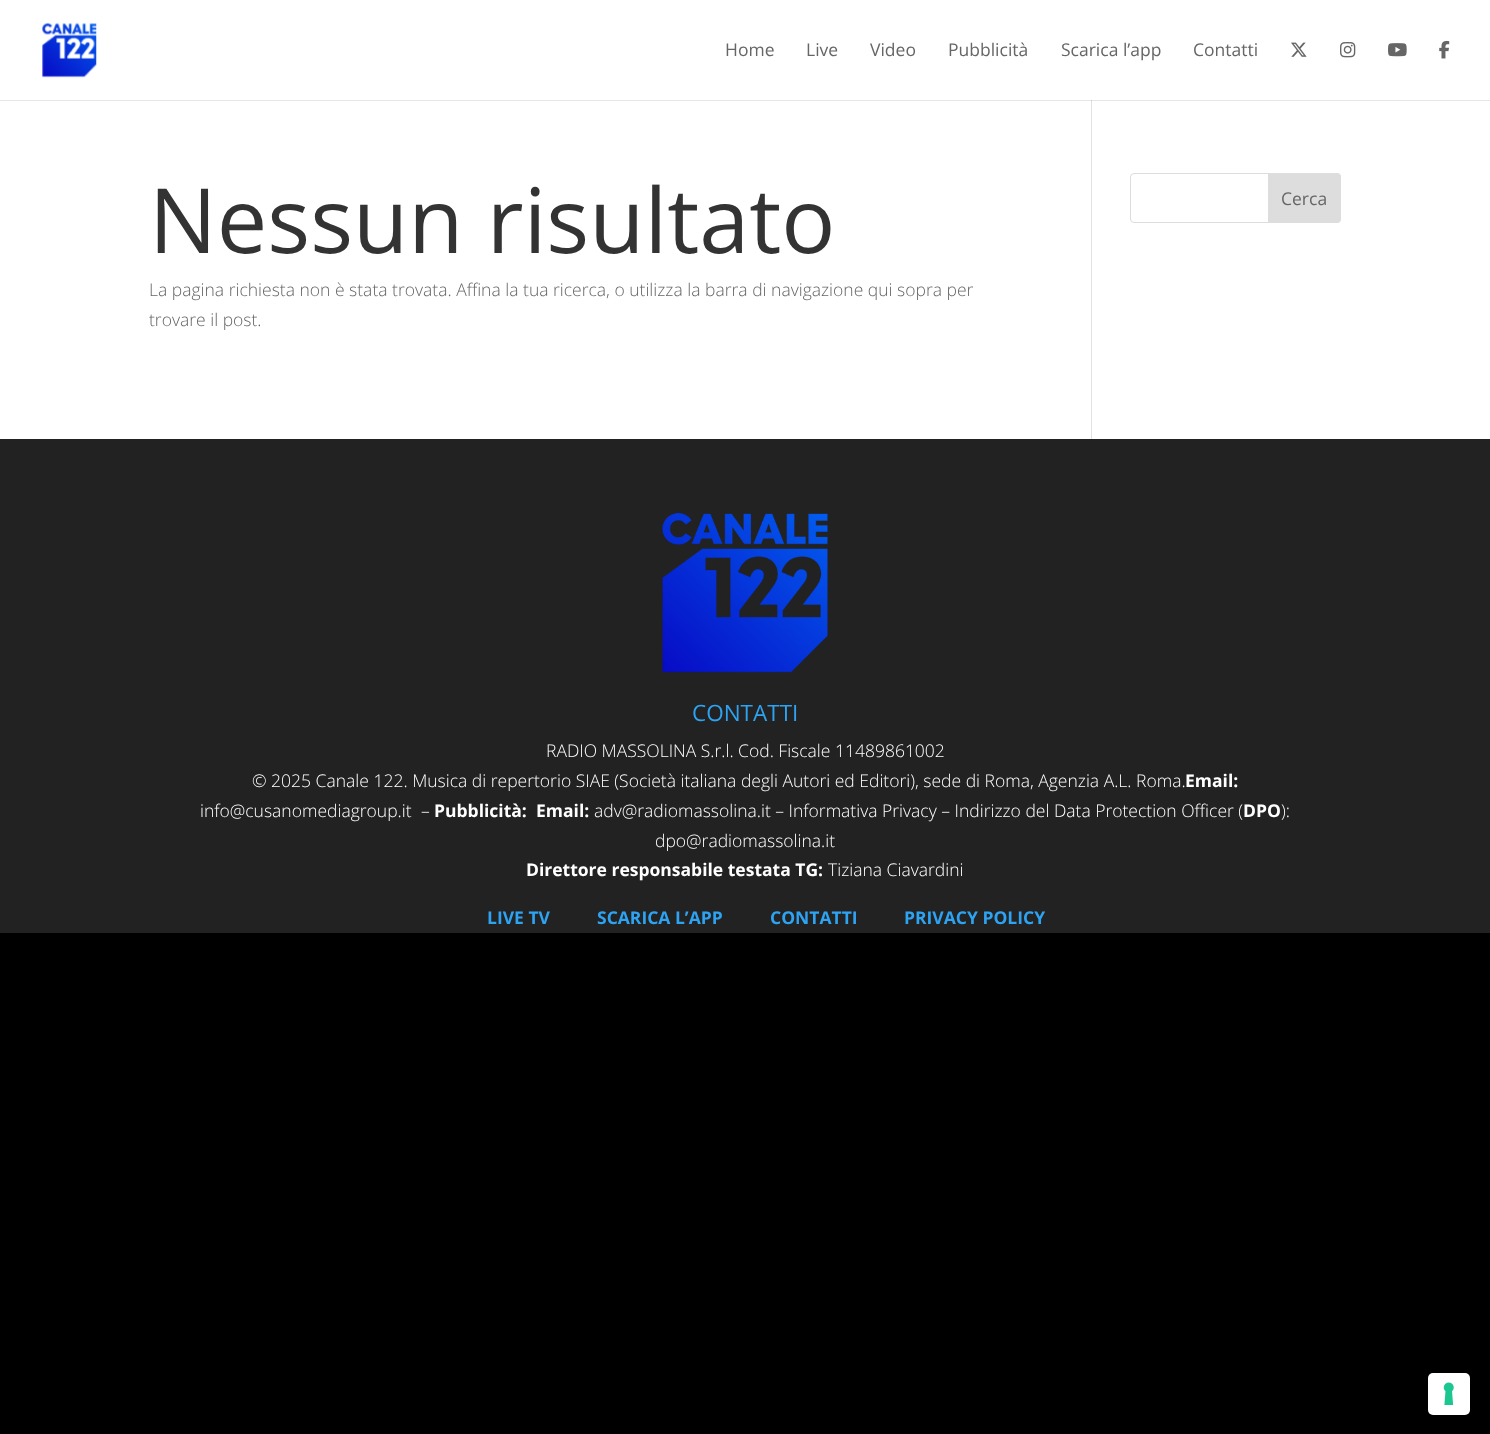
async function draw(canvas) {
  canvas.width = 1490;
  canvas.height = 1434;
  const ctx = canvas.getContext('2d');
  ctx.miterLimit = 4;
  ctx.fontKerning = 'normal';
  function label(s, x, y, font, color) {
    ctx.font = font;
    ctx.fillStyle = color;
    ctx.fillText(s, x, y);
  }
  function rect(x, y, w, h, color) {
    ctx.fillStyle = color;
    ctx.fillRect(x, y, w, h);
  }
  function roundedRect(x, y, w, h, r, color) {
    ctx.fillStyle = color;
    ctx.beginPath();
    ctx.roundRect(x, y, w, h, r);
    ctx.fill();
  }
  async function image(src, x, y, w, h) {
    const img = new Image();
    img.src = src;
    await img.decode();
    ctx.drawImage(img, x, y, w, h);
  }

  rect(0, 0, 1490, 1434, '#000');
  rect(0, 0, 1490, 100, '#fff');
  await image('assets/img1.png', 42, 22, 55, 56);
  label('Home', 725, 56, '17.5px Open Sans', '#666');
  label('Live', 806, 56, '17.5px Open Sans', '#666');
  label('Video', 870, 56, '17.5px Open Sans', '#666');
  label('Pubblicità', 948, 56, '17.5px Open Sans', '#666');
  label('Scarica l’app', 1061, 56, '17.5px Open Sans', '#666');
  label('Contatti', 1193, 56, '17.5px Open Sans', '#666');
  await image('assets/img2.png', 1291, 42, 16, 15);
  await image('assets/img3.png', 1340, 42, 16, 16);
  await image('assets/img4.png', 1388, 43, 19, 14);
  await image('assets/img5.png', 1439, 40, 11, 19);
  rect(0, 101, 1490, 338, '#fff');
  rect(0, 100, 1490, 1, '#e6e6e6');
  rect(1091, 100, 1, 339, '#e2e2e2');
  rect(1091, 100, 1, 1, '#cbcbcb');
  label('Nessun risultato', 149, 253, '90px Open Sans', '#333');
  label('La pagina richiesta non è stata trovata. Affina la tua ricerca, o utilizza la barra di navigazione qui sopra per', 149, 296, '300 17.5px Open Sans', '#666');
  label('trovare il post.', 149, 326, '300 17.5px Open Sans', '#666');
  ctx.beginPath();
  ctx.roundRect(1130.5, 173.5, 210, 49, 3.5);
  ctx.strokeStyle = '#ddd';
  ctx.stroke();
  ctx.fillStyle = '#ddd';
  ctx.beginPath();
  ctx.roundRect(1268.5, 173.5, 72, 49, [0, 3.5, 3.5, 0]);
  ctx.fill();
  ctx.stroke();
  label('Cerca', 1281, 205, '17.5px Open Sans', '#666');
  rect(0, 439, 1490, 494, '#222');
  await image('assets/img6.png', 662, 512, 166, 161);
  label('CONTATTI', 692, 721, '22.5px Open Sans', '#2ea3f2');
  label('RADIO MASSOLINA S.r.l. Cod. Fiscale 11489861002', 546, 757, '300 17.5px Open Sans', '#fff');
  label('© 2025 Canale 122. Musica di repertorio SIAE (Società italiana degli Autori ed Editori), sede di Roma, Agenzia A.L. Roma.', 252, 787, '300 17.5px Open Sans', '#fff');
  label('Email:', 1185, 787, 'bold 17.5px Open Sans', '#fff');
  label('info@cusanomediagroup.it', 200, 817, '300 17.5px Open Sans', '#fff');
  label('–', 421, 817, '300 17.5px Open Sans', '#fff');
  label('Pubblicità:', 434, 817, 'bold 17.5px Open Sans', '#fff');
  label('Email:', 536, 817, 'bold 17.5px Open Sans', '#fff');
  label('adv@radiomassolina.it – Informativa Privacy – Indirizzo del Data Protection Officer (', 594, 817, '300 17.5px Open Sans', '#fff');
  label('DPO', 1243, 817, 'bold 17.5px Open Sans', '#fff');
  label('):', 1281, 817, '300 17.5px Open Sans', '#fff');
  label('dpo@radiomassolina.it', 655, 847, '300 17.5px Open Sans', '#fff');
  label('Direttore responsabile testata TG:', 526, 876, 'bold 17.5px Open Sans', '#fff');
  label('Tiziana Ciavardini', 828, 876, '300 17.5px Open Sans', '#fff');
  label('LIVE TV', 487, 924, 'bold 17.5px Open Sans', '#2ea3f2');
  label('SCARICA L’APP', 597, 924, 'bold 17.5px Open Sans', '#2ea3f2');
  label('CONTATTI', 770, 924, 'bold 17.5px Open Sans', '#2ea3f2');
  label('PRIVACY POLICY', 904, 924, 'bold 17.5px Open Sans', '#2ea3f2');
  roundedRect(1428, 1373, 42, 42, 5, '#fff');
  await image('assets/img7.png', 1443, 1382, 11, 23);
}

draw(document.querySelector('canvas'));
